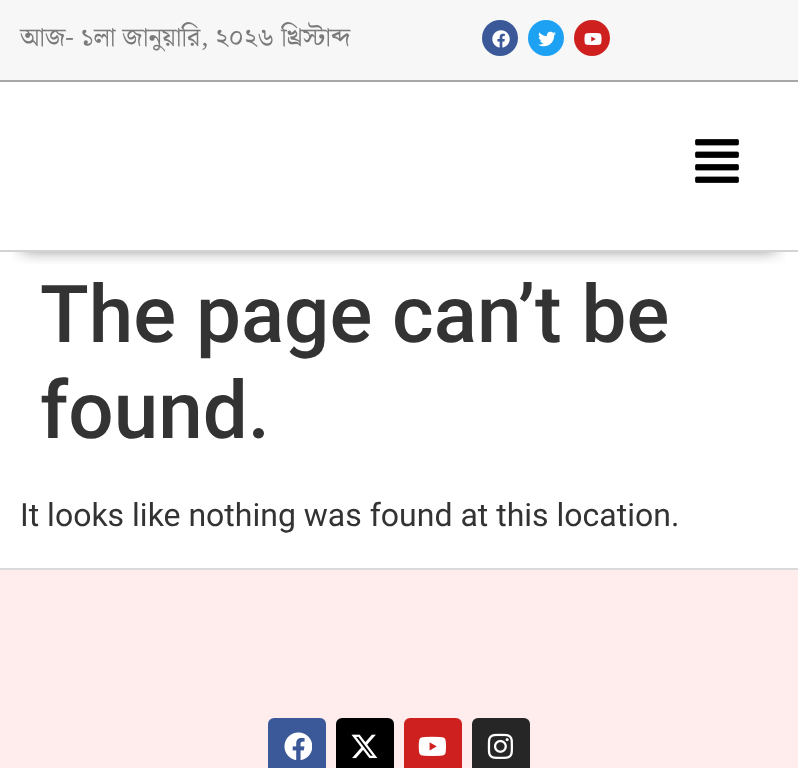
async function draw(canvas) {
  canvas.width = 798;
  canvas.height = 768;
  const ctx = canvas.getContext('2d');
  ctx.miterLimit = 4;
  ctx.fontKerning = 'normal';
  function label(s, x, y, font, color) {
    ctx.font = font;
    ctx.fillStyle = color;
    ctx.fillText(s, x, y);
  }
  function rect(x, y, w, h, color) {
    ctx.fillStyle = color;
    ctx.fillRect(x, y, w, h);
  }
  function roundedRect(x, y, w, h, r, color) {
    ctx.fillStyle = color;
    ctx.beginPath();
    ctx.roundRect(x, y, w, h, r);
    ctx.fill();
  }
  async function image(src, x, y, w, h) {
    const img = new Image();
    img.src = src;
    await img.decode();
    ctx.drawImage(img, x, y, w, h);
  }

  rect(0, 0, 798, 768, '#fff');
  rect(0, 0, 798, 80, '#f7f7f7');
  rect(0, 80, 798, 2, '#a7a7a7');
  label('আজ- ১লা জানুয়ারি, ২০২৬ খ্রিস্টাব্দ', 20, 46, '26px Noto Serif Bengali', '#7a7a7a');
  ctx.fillStyle = '#3b5998';
  ctx.beginPath();
  ctx.arc(500, 38, 18, 0, 2 * Math.PI);
  ctx.fill();
  await image('assets/img1.png', 492, 30, 18, 18);
  ctx.fillStyle = '#1da1f2';
  ctx.beginPath();
  ctx.arc(546, 38, 18, 0, 2 * Math.PI);
  ctx.fill();
  await image('assets/img2.png', 538, 31, 18, 16);
  ctx.fillStyle = '#cd201f';
  ctx.beginPath();
  ctx.arc(592, 38, 18, 0, 2 * Math.PI);
  ctx.fill();
  await image('assets/img3.png', 584, 33, 18, 12);
  ctx.save();
  ctx.beginPath();
  ctx.rect(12, 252, 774, 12);
  ctx.clip();
  ctx.fillStyle = '#00000080';
  ctx.filter = 'blur(8px)';
  ctx.beginPath();
  ctx.rect(22, 124, 754, 126);
  ctx.fill();
  ctx.filter = 'none';
  ctx.restore();
  rect(0, 250, 798, 2, '#d3d3d3');
  await image('assets/img4.png', 695, 139, 44, 44);
  label('The page can’t be', 40, 342, '500 80px Roboto', '#333');
  label('found.', 40, 438, '500 80px Roboto', '#333');
  label('It looks like nothing was found at this location.', 20, 526, '32px Roboto', '#333');
  rect(0, 570, 798, 198, '#ffeded');
  rect(0, 568, 798, 2, '#dadada');
  roundedRect(268, 718, 58, 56, 6, '#3b5998');
  await image('assets/img5.png', 284, 732, 28, 29);
  roundedRect(336, 718, 58, 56, 6, '#000');
  await image('assets/img6.png', 351, 734, 27, 25);
  roundedRect(404, 718, 58, 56, 6, '#cd201f');
  await image('assets/img7.png', 418, 736, 29, 20);
  roundedRect(472, 718, 58, 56, 6, '#262626');
  await image('assets/img8.png', 487, 733, 26, 26);
}

draw(document.querySelector('canvas'));
